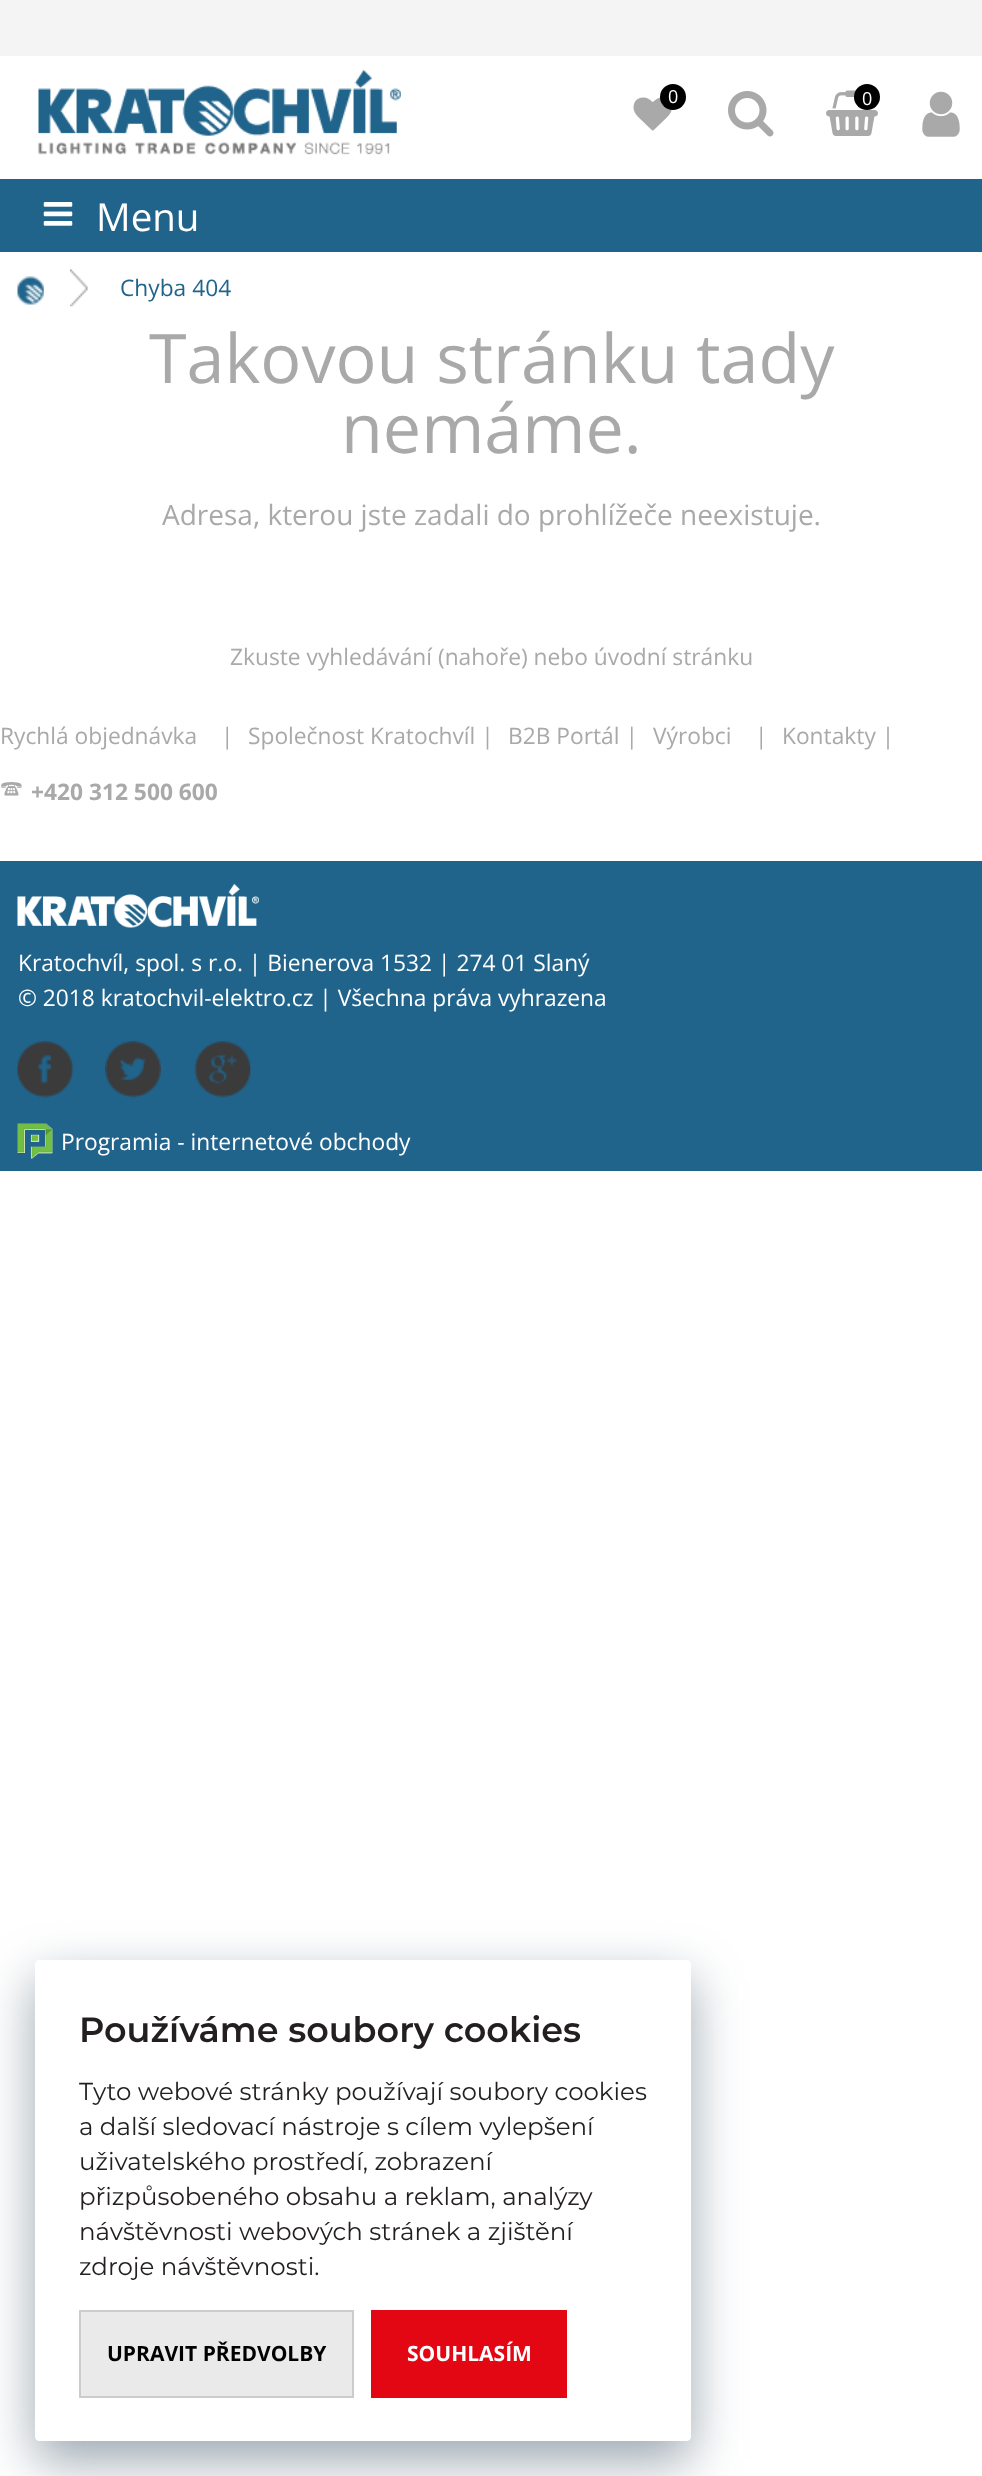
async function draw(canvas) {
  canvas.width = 982;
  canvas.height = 2476;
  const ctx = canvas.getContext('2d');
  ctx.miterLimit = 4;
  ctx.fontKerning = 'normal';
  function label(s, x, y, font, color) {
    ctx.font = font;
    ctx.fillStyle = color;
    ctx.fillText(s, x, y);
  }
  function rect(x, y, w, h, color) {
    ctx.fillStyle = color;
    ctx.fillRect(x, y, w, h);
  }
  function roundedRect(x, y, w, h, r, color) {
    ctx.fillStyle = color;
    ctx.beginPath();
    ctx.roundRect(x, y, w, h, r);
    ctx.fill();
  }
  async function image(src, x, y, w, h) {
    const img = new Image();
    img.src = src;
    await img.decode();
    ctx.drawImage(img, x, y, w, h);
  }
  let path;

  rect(0, 0, 982, 2476, '#fff');
  rect(0, 0, 982, 56, '#f4f4f4');
  await image('assets/img1.png', 922, 91, 38, 46);
  await image('assets/img2.png', 38, 69, 363, 86);
  await image('assets/img3.png', 633, 97, 39, 34);
  ctx.fillStyle = '#000';
  ctx.beginPath();
  ctx.arc(673, 97, 13, 0, 2 * Math.PI);
  ctx.fill();
  label('0', 668, 103, '18px Open Sans', '#fff');
  await image('assets/img4.png', 728, 91, 46, 46);
  await image('assets/img5.png', 826, 90, 52, 46);
  ctx.fillStyle = '#000';
  ctx.beginPath();
  ctx.arc(867, 97, 13, 0, 2 * Math.PI);
  ctx.fill();
  label('0', 862, 105, '18px Open Sans', '#fff');
  rect(0, 179, 982, 73, '#20648b');
  await image('assets/img6.png', 43, 202, 30, 24);
  label('Menu', 96, 231, '38.5px Open Sans', '#fff');
  await image('assets/img7.png', 17, 276, 27, 29);
  await image('assets/img8.png', 70, 269, 18, 38);
  label('Chyba 404', 120, 296, '22.75px Open Sans', '#20648b');
  label('Takovou stránku tady', 149, 383, '68.25px Open Sans', '#a9a9a9');
  label('nemáme.', 341, 453, '68.25px Open Sans', '#a9a9a9');
  label('Adresa, kterou jste zadali do prohlížeče neexistuje.', 162, 525, '28px Open Sans', '#a9a9a9');
  label('Zkuste vyhledávání (nahoře) nebo úvodní stránku', 230, 665, '22.75px Open Sans', '#a9a9a9');
  label('Rychlá objednávka', 0, 744, '22.75px Open Sans', '#a9a9a9');
  label('|', 221, 744, '22.75px Open Sans', '#a9a9a9');
  label('Společnost Kratochvíl |', 248, 744, '22.75px Open Sans', '#a9a9a9');
  label('B2B Portál |', 508, 744, '22.75px Open Sans', '#a9a9a9');
  label('Výrobci', 653, 744, '22.75px Open Sans', '#a9a9a9');
  label('|', 755, 744, '22.75px Open Sans', '#a9a9a9');
  label('Kontakty |', 782, 744, '22.75px Open Sans', '#a9a9a9');
  label('🕿', 0, 800, '32px FreeSerif', '#a9a9a9');
  label('+420 312 500 600', 31, 800, 'bold 22.75px Open Sans', '#a9a9a9');
  rect(0, 861, 982, 310, '#20648b');
  await image('assets/img9.png', 17, 883, 242, 45);
  label('Kratochvíl, spol. s r.o. | Bienerova 1532 | 274 01 Slaný', 18, 971, '22.75px Open Sans', '#fff');
  label('© 2018 kratochvil-elektro.cz | Všechna práva vyhrazena', 18, 1006, '22.75px Open Sans', '#fff');
  await image('assets/img10.png', 17, 1041, 57, 57);
  await image('assets/img11.png', 105, 1041, 56, 57);
  await image('assets/img12.png', 194, 1041, 57, 57);
  await image('assets/img13.png', 17, 1123, 36, 36);
  label('Programia - internetové obchody', 61, 1150, '22.75px Open Sans', '#fff');
  ctx.save();
  path = new Path2D('M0 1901H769V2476H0ZM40 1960H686C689 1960 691 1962 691 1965V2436C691 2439 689 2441 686 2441H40C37 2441 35 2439 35 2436V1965C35 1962 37 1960 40 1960Z');
  ctx.clip(path, 'evenodd');
  ctx.fillStyle = '#38506180';
  ctx.filter = 'blur(25.5px)';
  ctx.beginPath();
  ctx.roundRect(35, 1979, 656, 482, 5);
  ctx.fill();
  ctx.filter = 'none';
  ctx.restore();
  roundedRect(35, 1960, 656, 481, 5, '#ffffffd9');
  label('Používáme soubory cookies', 79, 2042, '600 35px Montserrat', '#231f20');
  label('Tyto webové stránky používají soubory cookies', 79, 2100, '24.5px Montserrat', '#231f20');
  label('a další sledovací nástroje s cílem vylepšení', 79, 2135, '24.5px Montserrat', '#231f20');
  label('uživatelského prostředí, zobrazení', 79, 2170, '24.5px Montserrat', '#231f20');
  label('přizpůsobeného obsahu a reklam, analýzy', 79, 2205, '24.5px Montserrat', '#231f20');
  label('návštěvnosti webových stránek a zjištění', 79, 2240, '24.5px Montserrat', '#231f20');
  label('zdroje návštěvnosti.', 79, 2275, '24.5px Montserrat', '#231f20');
  ctx.fillStyle = '#eaeaea';
  ctx.beginPath();
  ctx.rect(80, 2311, 273, 86);
  ctx.fill();
  ctx.strokeStyle = '#ccc';
  ctx.lineWidth = 2;
  ctx.stroke();
  label('UPRAVIT PŘEDVOLBY', 107, 2361, 'bold 21px Open Sans', '#000');
  rect(371, 2310, 196, 88, '#e30613');
  label('SOUHLASÍM', 407, 2361, 'bold 21px Open Sans', '#fff');
}

draw(document.querySelector('canvas'));
